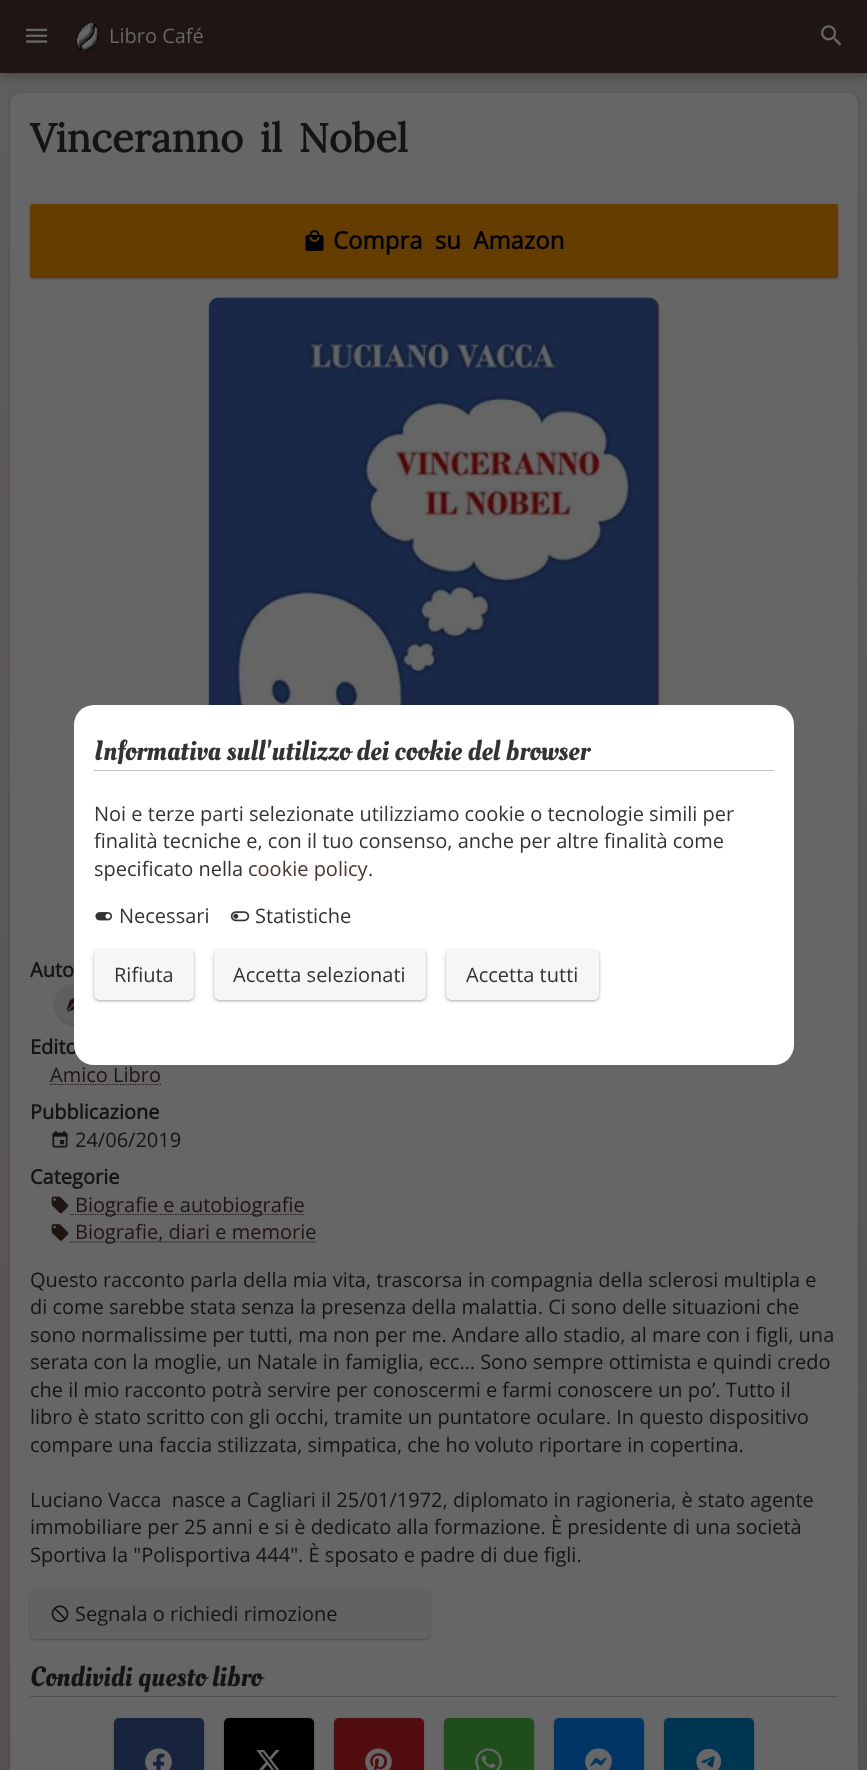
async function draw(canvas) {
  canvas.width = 867;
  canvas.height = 1770;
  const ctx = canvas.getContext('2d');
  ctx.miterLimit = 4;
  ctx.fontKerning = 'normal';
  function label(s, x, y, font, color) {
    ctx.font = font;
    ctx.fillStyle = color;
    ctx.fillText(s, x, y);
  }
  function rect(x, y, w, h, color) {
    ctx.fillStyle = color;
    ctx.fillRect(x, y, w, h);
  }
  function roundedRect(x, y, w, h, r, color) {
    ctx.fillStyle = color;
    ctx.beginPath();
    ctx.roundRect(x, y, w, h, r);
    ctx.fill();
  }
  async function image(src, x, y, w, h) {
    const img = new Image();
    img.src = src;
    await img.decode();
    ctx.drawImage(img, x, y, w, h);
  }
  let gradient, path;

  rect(0, 0, 867, 1770, '#fff');
  gradient = ctx.createLinearGradient(434, 1770, 434, 0);
  gradient.addColorStop(0, '#565250');
  gradient.addColorStop(1, '#605e5d');
  ctx.fillStyle = gradient;
  ctx.fillRect(0, 73, 867, 1697);
  rect(0, 0, 867, 73, '#1f1512');
  ctx.save();
  path = new Path2D('M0 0H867V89H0ZM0 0H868V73H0Z');
  ctx.clip(path, 'evenodd');
  ctx.fillStyle = '#0000003b';
  ctx.filter = 'blur(4px)';
  ctx.beginPath();
  ctx.rect(0, 4, 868, 72);
  ctx.fill();
  ctx.filter = 'none';
  ctx.restore();
  await image('assets/img1.png', 26, 28, 21, 15);
  await image('assets/img2.png', 76, 22, 23, 31);
  label('Libro Café', 109, 43, '20px Open Sans', '#666');
  await image('assets/img3.png', 821, 25, 21, 21);
  ctx.fillStyle = '#0000003d';
  ctx.filter = 'blur(1px)';
  ctx.beginPath();
  ctx.roundRect(10, 94, 848, 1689, 10);
  ctx.fill();
  ctx.filter = 'none';
  roundedRect(10, 93, 848, 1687, 10, '#666');
  ctx.wordSpacing = '6px';
  label('Vinceranno il Nobel', 30, 152, 'bold 40px Lora', '#141414');
  ctx.fillStyle = '#0000003d';
  ctx.filter = 'blur(1px)';
  ctx.beginPath();
  ctx.roundRect(30, 205, 808, 74, 2.5);
  ctx.fill();
  ctx.filter = 'none';
  roundedRect(30, 204, 808, 74, 2.5, '#663d00');
  await image('assets/img4.png', 305, 230, 19, 21);
  label('Compra su Amazon', 333, 249, 'bold 24px Open Sans', '#000');
  ctx.fillStyle = '#0000003d';
  ctx.filter = 'blur(1px)';
  ctx.beginPath();
  ctx.roundRect(209, 299, 450, 639, 10);
  ctx.fill();
  ctx.filter = 'none';
  await image('assets/img5.png', 208, 297, 451, 408);
  ctx.wordSpacing = '0px';
  label('Auto', 30, 977, 'bold 20px Open Sans', '#141414');
  ctx.fillStyle = '#0000003d';
  ctx.filter = 'blur(1px)';
  ctx.beginPath();
  ctx.roundRect(55, 985, 201, 40, 20);
  ctx.fill();
  ctx.filter = 'none';
  ctx.fillStyle = '#5f5f5f';
  ctx.beginPath();
  ctx.arc(75, 1004, 20, 0, 2 * Math.PI);
  ctx.fill();
  await image('assets/img6.png', 66, 998, 8, 14);
  label('Edito', 30, 1054, 'bold 20px Open Sans', '#141414');
  label('Amico Libro', 50, 1082, '20px Open Sans', '#1f1512');
  path = new Path2D('M50 1084.5H161');
  ctx.strokeStyle = '#1f1512';
  ctx.lineWidth = 1.2;
  ctx.setLineDash([1.25, 1.25]);
  ctx.stroke(path);
  label('Pubblicazione', 30, 1119, 'bold 20px Open Sans', '#141414');
  await image('assets/img7.png', 52, 1130, 16, 18);
  label('24/06/2019', 75, 1147, '20px Open Sans', '#141414');
  label('Categorie', 30, 1184, 'bold 20px Open Sans', '#141414');
  await image('assets/img8.png', 51, 1196, 18, 18);
  path = new Path2D('M70 1214.5H305');
  ctx.stroke(path);
  label('Biografie e autobiografie', 75, 1212, '20px Open Sans', '#1f1512');
  await image('assets/img9.png', 51, 1224, 18, 17);
  path = new Path2D('M70 1242H316.5');
  ctx.stroke(path);
  label('Biografie, diari e memorie', 75, 1239, '20px Open Sans', '#1f1512');
  label('Questo racconto parla della mia vita, trascorsa in compagnia della sclerosi multipla e', 30, 1287, '20px Open Sans', '#141414');
  label('di come sarebbe stata senza la presenza della malattia. Ci sono delle situazioni che', 30, 1314, '20px Open Sans', '#141414');
  label('sono normalissime per tutti, ma non per me. Andare allo stadio, al mare con i figli, una', 30, 1342, '20px Open Sans', '#141414');
  label('serata con la moglie, un Natale in famiglia, ecc… Sono sempre ottimista e quindi credo', 30, 1369, '20px Open Sans', '#141414');
  label('che il mio racconto potrà servire per conoscermi e farmi conoscere un po’. Tutto il', 30, 1397, '20px Open Sans', '#141414');
  label('libro è stato scritto con gli occhi, tramite un puntatore oculare. In questo dispositivo', 30, 1424, '20px Open Sans', '#141414');
  label('compare una faccia stilizzata, simpatica, che ho voluto riportare in copertina.', 30, 1452, '20px Open Sans', '#141414');
  label('Luciano Vacca  nasce a Cagliari il 25/01/1972, diplomato in ragioneria, è stato agente', 30, 1507, '20px Open Sans', '#141414');
  label('immobiliare per 25 anni e si è dedicato alla formazione. È presidente di una società', 30, 1534, '20px Open Sans', '#141414');
  label('Sportiva la "Polisportiva 444". È sposato e padre di due figli.', 30, 1562, '20px Open Sans', '#141414');
  ctx.fillStyle = '#0000003d';
  ctx.filter = 'blur(1px)';
  ctx.beginPath();
  ctx.roundRect(30, 1590, 400, 50, 5);
  ctx.fill();
  ctx.filter = 'none';
  roundedRect(30, 1589, 400, 50, 5, '#626262');
  await image('assets/img10.png', 51, 1605, 18, 17);
  label('Segnala o richiedi rimozione', 75, 1621, '20px Open Sans', '#141414');
  rect(30, 1696, 808, 1, '#4d4d4d');
  label('Condividi questo libro', 30, 1686, '28px Oleo Script', '#141414');
  ctx.fillStyle = '#0000003d';
  ctx.filter = 'blur(1px)';
  ctx.beginPath();
  ctx.roundRect(114, 1719, 90, 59, 5);
  ctx.fill();
  ctx.filter = 'none';
  roundedRect(114, 1718, 90, 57, 5, '#18243d');
  await image('assets/img11.png', 145, 1748, 27, 22);
  ctx.fillStyle = '#0000003d';
  ctx.filter = 'blur(1px)';
  ctx.beginPath();
  ctx.roundRect(224, 1719, 90, 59, 5);
  ctx.fill();
  ctx.filter = 'none';
  roundedRect(224, 1718, 90, 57, 5, '#000');
  await image('assets/img12.png', 256, 1750, 24, 20);
  ctx.fillStyle = '#0000003d';
  ctx.filter = 'blur(1px)';
  ctx.beginPath();
  ctx.roundRect(334, 1719, 90, 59, 5);
  ctx.fill();
  ctx.filter = 'none';
  roundedRect(334, 1718, 90, 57, 5, '#510d10');
  await image('assets/img13.png', 365, 1748, 27, 22);
  ctx.fillStyle = '#0000003d';
  ctx.filter = 'blur(1px)';
  ctx.beginPath();
  ctx.roundRect(444, 1719, 90, 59, 5);
  ctx.fill();
  ctx.filter = 'none';
  roundedRect(444, 1718, 90, 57, 5, '#1f4e1c');
  await image('assets/img14.png', 475, 1748, 27, 22);
  ctx.fillStyle = '#0000003d';
  ctx.filter = 'blur(1px)';
  ctx.beginPath();
  ctx.roundRect(554, 1719, 90, 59, 5);
  ctx.fill();
  ctx.filter = 'none';
  roundedRect(554, 1718, 90, 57, 5, '#003566');
  await image('assets/img15.png', 585, 1748, 27, 22);
  ctx.fillStyle = '#0000003d';
  ctx.filter = 'blur(1px)';
  ctx.beginPath();
  ctx.roundRect(664, 1719, 90, 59, 5);
  ctx.fill();
  ctx.filter = 'none';
  roundedRect(664, 1718, 90, 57, 5, '#003652');
  await image('assets/img16.png', 696, 1749, 25, 21);
  roundedRect(74, 705, 720, 360, 20, '#fff');
  rect(94, 770, 680, 1, '#c0c0c0');
  label('Informativa sull\'utilizzo dei cookie del browser', 94, 760, '28px Oleo Script', '#333');
  label('Noi e terze parti selezionate utilizziamo cookie o tecnologie simili per', 94, 821, '20px Open Sans', '#333');
  label('finalità tecniche e, con il tuo consenso, anche per altre finalità come', 94, 848, '20px Open Sans', '#333');
  label('specificato nella', 94, 876, '20px Open Sans', '#333');
  label('cookie policy', 248, 876, '20px Open Sans', '#4e342e');
  label('.', 368, 876, '20px Open Sans', '#333');
  await image('assets/img17.png', 95, 912, 18, 9);
  label('Necessari', 119, 923, '20px Open Sans', '#333');
  await image('assets/img18.png', 230, 911, 20, 11);
  label('Statistiche', 255, 923, '20px Open Sans', '#333');
  ctx.fillStyle = '#0000003d';
  ctx.filter = 'blur(1px)';
  ctx.beginPath();
  ctx.roundRect(94, 951, 100, 50, 5);
  ctx.fill();
  ctx.filter = 'none';
  ctx.fillStyle = '#0000001f';
  ctx.filter = 'blur(2px)';
  ctx.beginPath();
  ctx.roundRect(94, 951, 100, 50, 5);
  ctx.fill();
  ctx.filter = 'none';
  roundedRect(94, 950, 100, 50, 5, '#f6f6f6');
  label('Rifiuta', 114, 982, '20px Open Sans', '#333');
  ctx.fillStyle = '#0000003d';
  ctx.filter = 'blur(1px)';
  ctx.beginPath();
  ctx.roundRect(214, 951, 212, 50, 5);
  ctx.fill();
  ctx.filter = 'none';
  ctx.fillStyle = '#0000001f';
  ctx.filter = 'blur(2px)';
  ctx.beginPath();
  ctx.roundRect(214, 951, 212, 50, 5);
  ctx.fill();
  ctx.filter = 'none';
  roundedRect(214, 950, 212, 50, 5, '#f6f6f6');
  label('Accetta selezionati', 233, 982, '20px Open Sans', '#333');
  ctx.fillStyle = '#0000003d';
  ctx.filter = 'blur(1px)';
  ctx.beginPath();
  ctx.roundRect(446, 951, 153, 50, 5);
  ctx.fill();
  ctx.filter = 'none';
  ctx.fillStyle = '#0000001f';
  ctx.filter = 'blur(2px)';
  ctx.beginPath();
  ctx.roundRect(446, 951, 153, 50, 5);
  ctx.fill();
  ctx.filter = 'none';
  roundedRect(446, 950, 153, 50, 5, '#f6f6f6');
  label('Accetta tutti', 466, 982, '20px Open Sans', '#333');
}

draw(document.querySelector('canvas'));
